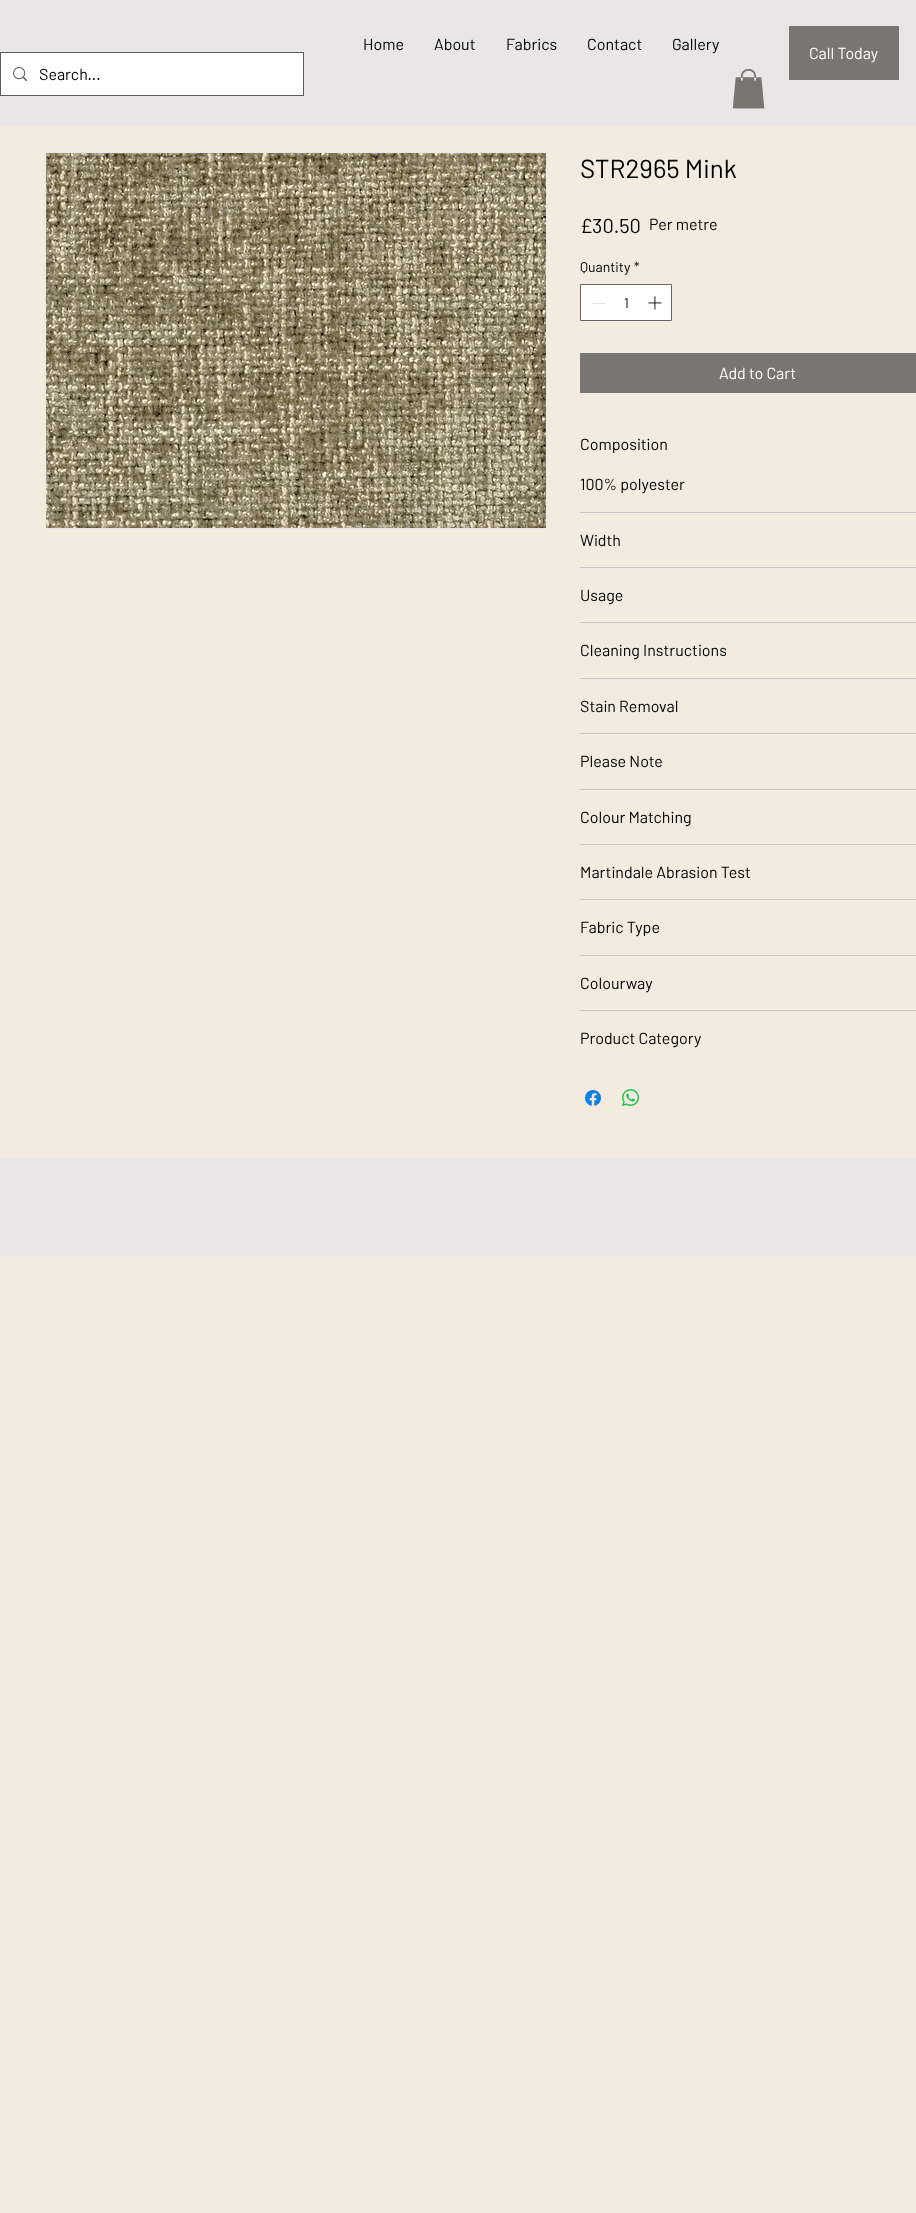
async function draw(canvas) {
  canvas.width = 916;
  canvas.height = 2213;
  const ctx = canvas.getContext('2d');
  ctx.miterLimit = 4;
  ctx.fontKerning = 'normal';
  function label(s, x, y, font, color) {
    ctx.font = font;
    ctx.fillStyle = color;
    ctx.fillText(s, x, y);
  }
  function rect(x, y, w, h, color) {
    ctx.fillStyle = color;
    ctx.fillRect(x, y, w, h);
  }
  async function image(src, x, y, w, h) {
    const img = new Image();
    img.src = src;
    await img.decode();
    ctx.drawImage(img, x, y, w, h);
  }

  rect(0, 0, 916, 2213, '#f4ebe0');
  rect(0, 0, 916, 126, '#e8e6e6');
  label('Home', 363, 50, '16px Barlow', '#000');
  label('About', 434, 50, '16px Barlow', '#000');
  label('Fabrics', 506, 50, '16px Barlow', '#000');
  label('Contact', 587, 50, '16px Barlow', '#000');
  label('Gallery', 672, 50, '16px Barlow', '#000');
  rect(789, 26, 110, 54, '#797572');
  label('Call Today', 809, 59, '16px Barlow', '#fff');
  await image('assets/img1.png', 732, 69, 33, 40);
  ctx.strokeStyle = '#5d5c5c';
  ctx.strokeRect(0.5, 52.5, 303, 43);
  rect(1, 53, 302, 42, '#fff');
  await image('assets/img2.png', 13, 67, 14, 14);
  label('Search...', 39, 80, '16px Barlow', '#000');
  ctx.strokeStyle = '#e8e6e6';
  ctx.strokeRect(45.5, 152.5, 501, 376);
  await image('assets/img3.png', 46, 153, 500, 375);
  label('STR2965 Mink', 580, 178, '26px Barlow', '#000');
  label('£30.50', 580, 233, '20px Barlow', '#000');
  label('Quantity', 580, 272, '14px Barlow', '#000');
  label('*', 634, 272, '14px Barlow', '#000');
  ctx.fillStyle = '#fff';
  ctx.beginPath();
  ctx.rect(580.5, 284.5, 91, 36);
  ctx.fill();
  ctx.strokeStyle = '#666';
  ctx.stroke();
  rect(592, 303, 13, 1, '#e3e3e3');
  label('1', 624, 308, '14px Barlow', '#000');
  await image('assets/img4.png', 648, 296, 14, 14);
  rect(580, 353, 336, 40, '#797572');
  label('Add to Cart', 719, 379, '16px Barlow', '#fff');
  rect(580, 512, 336, 1, '#c7c7c7');
  label('Composition', 580, 450, '16px Barlow', '#000');
  label('100% polyester', 580, 490, '16px Barlow', '#000');
  rect(580, 567, 336, 1, '#c7c7c7');
  label('Width', 580, 546, '16px Barlow', '#000');
  rect(580, 622, 336, 1, '#c7c7c7');
  label('Usage', 580, 601, '16px Barlow', '#000');
  rect(580, 678, 336, 1, '#c7c7c7');
  label('Cleaning Instructions', 580, 656, '16px Barlow', '#000');
  rect(580, 733, 336, 1, '#c7c7c7');
  label('Stain Removal', 580, 712, '16px Barlow', '#000');
  rect(580, 789, 336, 1, '#c7c7c7');
  label('Please Note', 580, 767, '16px Barlow', '#000');
  rect(580, 844, 336, 1, '#c7c7c7');
  label('Colour Matching', 580, 823, '16px Barlow', '#000');
  rect(580, 899, 336, 1, '#c7c7c7');
  label('Martindale Abrasion Test', 580, 878, '16px Barlow', '#000');
  rect(580, 955, 336, 1, '#c7c7c7');
  label('Fabric Type', 580, 933, '16px Barlow', '#000');
  rect(580, 1010, 336, 1, '#c7c7c7');
  label('Colourway', 580, 989, '16px Barlow', '#000');
  label('Product Category', 580, 1044, '16px Barlow', '#000');
  await image('assets/img5.png', 585, 1090, 16, 16);
  await image('assets/img6.png', 622, 1089, 17, 17);
  label('Per metre', 649, 230, '16px Barlow', '#000');
  rect(0, 1158, 916, 98, '#e8e6e6');
}

draw(document.querySelector('canvas'));
